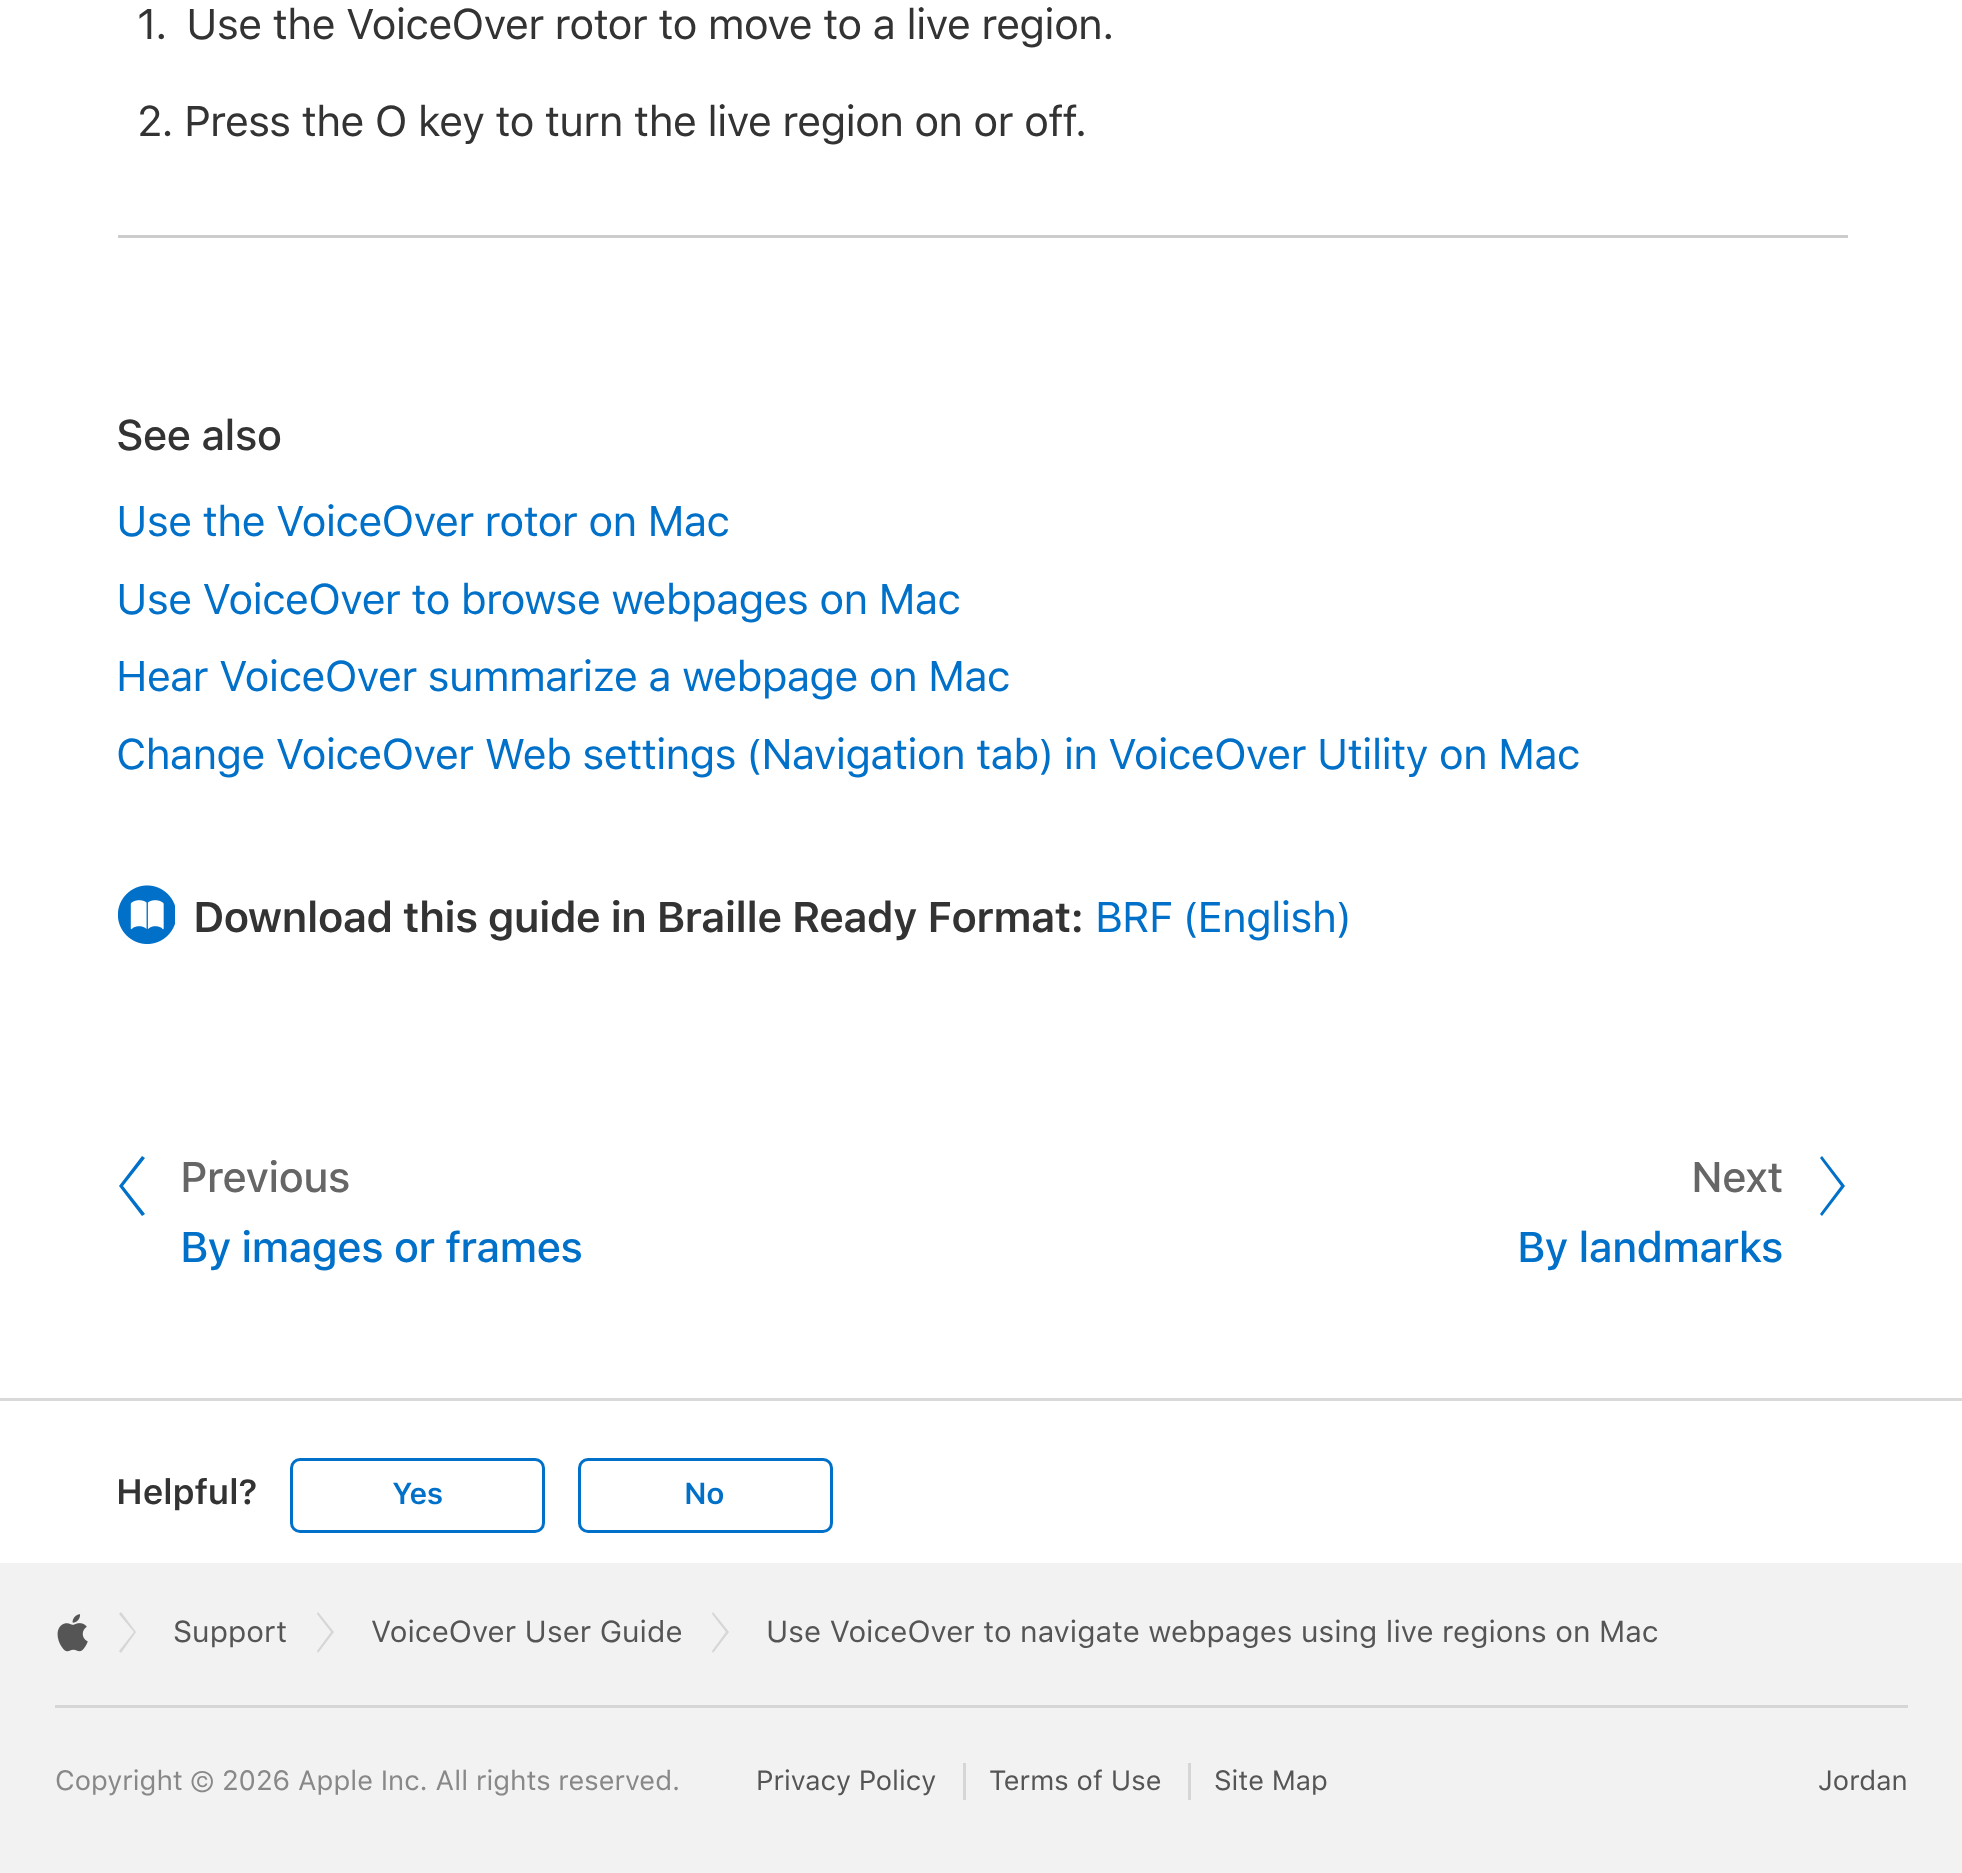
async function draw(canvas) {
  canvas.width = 1962;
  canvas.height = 1873;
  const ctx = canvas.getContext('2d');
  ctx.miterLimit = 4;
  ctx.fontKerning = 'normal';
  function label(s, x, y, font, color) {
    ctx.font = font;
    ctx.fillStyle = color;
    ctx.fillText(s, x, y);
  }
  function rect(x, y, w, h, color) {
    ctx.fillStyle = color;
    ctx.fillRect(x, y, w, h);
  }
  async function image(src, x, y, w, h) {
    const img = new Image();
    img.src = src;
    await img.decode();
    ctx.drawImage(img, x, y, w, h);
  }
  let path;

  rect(0, 0, 1962, 1873, '#fff');
  ctx.letterSpacing = '-0.9px';
  label('1.', 137, 39, '42.5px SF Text', '#333');
  label('Use the VoiceOver rotor to move to a live region.', 186, 39, '42.5px SF Text', '#333');
  label('2. Press the O key to turn the live region on or off.', 137, 136, '42.5px SF Text', '#333');
  rect(118, 235, 1730, 3, '#ccc');
  label('See also', 116, 450, '500 42.5px SF Text', '#333');
  label('Use the VoiceOver rotor on Mac', 116, 536, '42.5px SF Text', '#0070c9');
  label('Use VoiceOver to browse webpages on Mac', 116, 614, '42.5px SF Text', '#0070c9');
  label('Hear VoiceOver summarize a webpage on Mac', 116, 691, '42.5px SF Text', '#0070c9');
  label('Change VoiceOver Web settings (Navigation tab) in VoiceOver Utility on Mac', 116, 769, '42.5px SF Text', '#0070c9');
  await image('assets/img1.png', 118, 885, 57, 60);
  label('Download this guide in Braille Ready Format:', 193, 932, '600 42.5px SF Text', '#333');
  label('BRF (English)', 1095, 932, '42.5px SF Text', '#0070c9');
  path = new Path2D('M142 1156L119 1186L142 1216L145 1214L123 1186L145 1158Z');
  ctx.fill(path);
  label('Previous', 180, 1192, '500 42.5px SF Text', '#666');
  label('By images or frames', 180, 1262, '500 42.5px SF Text', '#0070c9');
  label('Next', 1691, 1192, '500 42.5px SF Text', '#666');
  ctx.fillStyle = '#0070c9';
  path = new Path2D('M1820 1158L1841 1186L1820 1214L1822 1216L1845 1186L1822 1156Z');
  ctx.fill(path);
  label('By landmarks', 1517, 1262, '500 42.5px SF Text', '#0070c9');
  rect(0, 1398, 1962, 3, '#d9d9d9');
  ctx.letterSpacing = '-0.25px';
  label('Helpful?', 116, 1504, '600 35px SF Text', '#333');
  ctx.beginPath();
  ctx.roundRect(291.5, 1459.5, 252, 72, 8.5);
  ctx.strokeStyle = '#0070c9';
  ctx.lineWidth = 3;
  ctx.stroke();
  ctx.letterSpacing = '-0.5px';
  label('Yes', 392, 1504, '600 30px SF Text', '#0070c9');
  ctx.beginPath();
  ctx.roundRect(579.5, 1459.5, 252, 72, 8.5);
  ctx.stroke();
  label('No', 684, 1504, '600 30px SF Text', '#0070c9');
  rect(0, 1563, 1962, 310, '#f2f2f2');
  await image('assets/img2.png', 57, 1614, 31, 38);
  ctx.fillStyle = '#d6d6d6';
  path = new Path2D('M121 1612L136 1632L121 1653L119 1651L134 1632L119 1614Z');
  ctx.fill(path);
  ctx.letterSpacing = '0px';
  label('Support', 173, 1642, '30px SF Text', '#555');
  ctx.fillStyle = '#d6d6d6';
  path = new Path2D('M318 1612L334 1632L318 1653L317 1651L331 1632L317 1614Z');
  ctx.fill(path);
  label('VoiceOver User Guide', 371, 1642, '30px SF Text', '#555');
  ctx.fillStyle = '#d6d6d6';
  path = new Path2D('M713 1612L729 1632L713 1653L712 1651L726 1632L712 1614Z');
  ctx.fill(path);
  label('Use VoiceOver to navigate webpages using live regions on Mac', 766, 1642, '30px SF Text', '#555');
  rect(55, 1705, 1853, 3, '#d6d6d6');
  label('Copyright © 2026 Apple Inc. All rights reserved.', 55, 1790, '27.6px SF Text', '#888');
  rect(963, 1763, 3, 37, '#d6d6d6');
  label('Privacy Policy', 756, 1790, '27.6px SF Text', '#555');
  rect(1188, 1763, 3, 37, '#d6d6d6');
  label('Terms of Use', 989, 1790, '27.6px SF Text', '#555');
  label('Site Map', 1214, 1790, '27.6px SF Text', '#555');
  label('Jordan', 1818, 1790, '27.6px SF Text', '#555');
}

draw(document.querySelector('canvas'));
